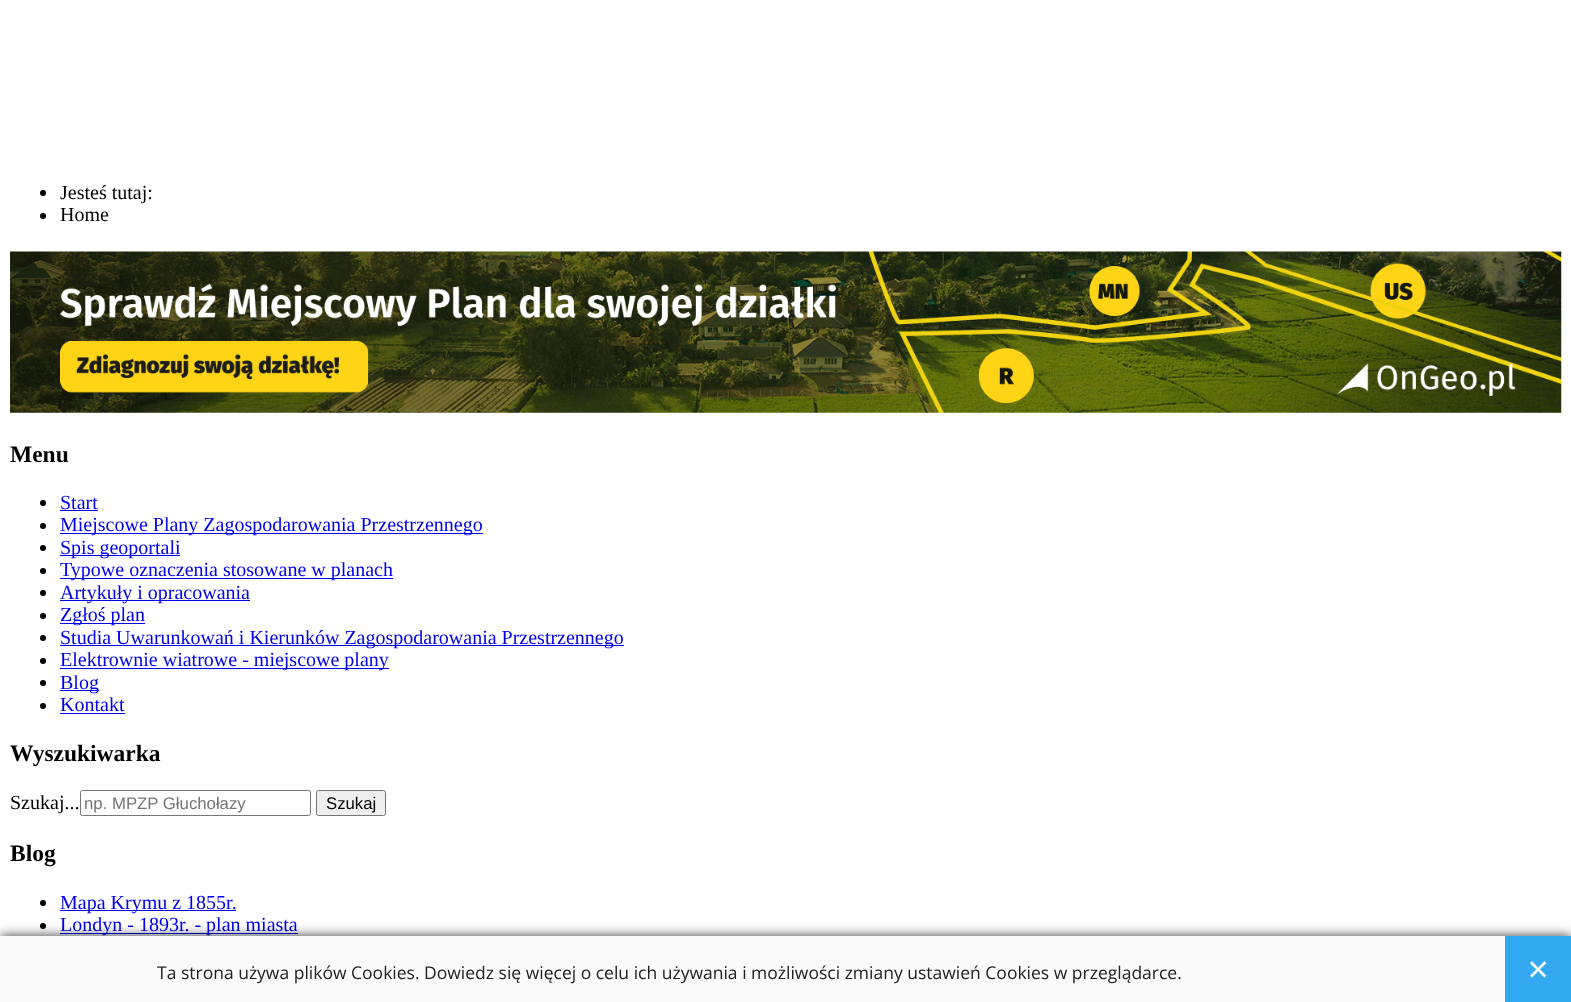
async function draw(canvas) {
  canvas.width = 1571;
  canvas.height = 1002;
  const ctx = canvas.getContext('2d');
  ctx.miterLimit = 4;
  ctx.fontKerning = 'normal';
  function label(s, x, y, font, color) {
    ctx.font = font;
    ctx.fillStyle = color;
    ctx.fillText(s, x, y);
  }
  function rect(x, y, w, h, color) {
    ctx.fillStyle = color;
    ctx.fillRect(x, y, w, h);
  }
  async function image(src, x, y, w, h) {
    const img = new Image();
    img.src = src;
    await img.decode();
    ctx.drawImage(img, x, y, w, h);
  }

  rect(0, 0, 1571, 1002, '#fff');
  ctx.fillStyle = '#000';
  ctx.beginPath();
  ctx.arc(43, 193, 3, 0, 2 * Math.PI);
  ctx.fill();
  label('Jesteś tutaj:', 60, 199, '20px Liberation Serif', '#000');
  ctx.beginPath();
  ctx.arc(43, 216, 3, 0, 2 * Math.PI);
  ctx.fill();
  label('Home', 60, 221, '20px Liberation Serif', '#000');
  await image('assets/img1.png', 10, 251, 1552, 162);
  label('Menu', 10, 462, 'bold 23.5px Liberation Serif', '#000');
  ctx.beginPath();
  ctx.arc(43, 503, 3, 0, 2 * Math.PI);
  ctx.fill();
  label('Start', 60, 509, '20px Liberation Serif', '#00e');
  rect(60, 510, 38, 1, '#00e');
  ctx.fillStyle = '#000';
  ctx.beginPath();
  ctx.arc(43, 526, 3, 0, 2 * Math.PI);
  ctx.fill();
  rect(60, 533, 423, 1, '#00e');
  label('Miejscowe Plany Zagospodarowania Przestrzennego', 60, 531, '20px Liberation Serif', '#00e');
  ctx.fillStyle = '#000';
  ctx.beginPath();
  ctx.arc(43, 548, 3, 0, 2 * Math.PI);
  ctx.fill();
  rect(60, 555, 120, 1, '#00e');
  label('Spis geoportali', 60, 554, '20px Liberation Serif', '#00e');
  ctx.fillStyle = '#000';
  ctx.beginPath();
  ctx.arc(43, 571, 3, 0, 2 * Math.PI);
  ctx.fill();
  rect(60, 578, 333, 1, '#00e');
  label('Typowe oznaczenia stosowane w planach', 60, 576, '20px Liberation Serif', '#00e');
  ctx.fillStyle = '#000';
  ctx.beginPath();
  ctx.arc(43, 593, 3, 0, 2 * Math.PI);
  ctx.fill();
  rect(60, 600, 190, 1, '#00e');
  label('Artykuły i opracowania', 60, 599, '20px Liberation Serif', '#00e');
  ctx.fillStyle = '#000';
  ctx.beginPath();
  ctx.arc(43, 616, 3, 0, 2 * Math.PI);
  ctx.fill();
  rect(60, 623, 85, 1, '#00e');
  label('Zgłoś plan', 60, 621, '20px Liberation Serif', '#00e');
  ctx.fillStyle = '#000';
  ctx.beginPath();
  ctx.arc(43, 638, 3, 0, 2 * Math.PI);
  ctx.fill();
  rect(60, 645, 564, 1, '#00e');
  label('Studia Uwarunkowań i Kierunków Zagospodarowania Przestrzennego', 60, 644, '20px Liberation Serif', '#00e');
  ctx.fillStyle = '#000';
  ctx.beginPath();
  ctx.arc(43, 661, 3, 0, 2 * Math.PI);
  ctx.fill();
  rect(60, 668, 329, 1, '#00e');
  label('Elektrownie wiatrowe - miejscowe plany', 60, 666, '20px Liberation Serif', '#00e');
  ctx.fillStyle = '#000';
  ctx.beginPath();
  ctx.arc(43, 683, 3, 0, 2 * Math.PI);
  ctx.fill();
  rect(60, 690, 39, 1, '#00e');
  label('Blog', 60, 689, '20px Liberation Serif', '#00e');
  ctx.fillStyle = '#000';
  ctx.beginPath();
  ctx.arc(43, 706, 3, 0, 2 * Math.PI);
  ctx.fill();
  label('Kontakt', 60, 711, '20px Liberation Serif', '#00e');
  rect(60, 713, 65, 1, '#00e');
  label('Wyszukiwarka', 10, 761, 'bold 23.5px Liberation Serif', '#000');
  label('Szukaj...', 10, 809, '20px Liberation Serif', '#000');
  ctx.beginPath();
  ctx.roundRect(80.5, 790.5, 230, 25, 2);
  ctx.strokeStyle = '#767676';
  ctx.stroke();
  label('np. MPZP Głuchołazy', 84, 809, '16.75px Liberation Sans', '#757575');
  ctx.fillStyle = '#efefef';
  ctx.beginPath();
  ctx.roundRect(316.5, 790.5, 69, 25, 2);
  ctx.fill();
  ctx.stroke();
  label('Szukaj', 326, 809, '16.75px Liberation Sans', '#000');
  label('Blog', 10, 861, 'bold 23.5px Liberation Serif', '#000');
  ctx.beginPath();
  ctx.arc(43, 903, 3, 0, 2 * Math.PI);
  ctx.fill();
  rect(60, 910, 176, 1, '#00e');
  label('Mapa Krymu z 1855r.', 60, 909, '20px Liberation Serif', '#00e');
  ctx.fillStyle = '#000';
  ctx.beginPath();
  ctx.arc(43, 926, 3, 0, 2 * Math.PI);
  ctx.fill();
  rect(60, 933, 238, 1, '#00e');
  label('Londyn - 1893r. - plan miasta', 60, 931, '20px Liberation Serif', '#00e');
  ctx.fillStyle = '#000000cc';
  ctx.filter = 'blur(6px)';
  ctx.beginPath();
  ctx.rect(0, 936, 1571, 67);
  ctx.fill();
  ctx.filter = 'none';
  rect(0, 936, 1505, 66, '#fafafa');
  label('Ta strona używa plików Cookies. Dowiedz się więcej o celu ich używania i możliwości zmiany ustawień Cookies w przeglądarce.', 157, 979, '17.5px Open Sans', '#212121');
  rect(1505, 936, 66, 66, '#31a8f0');
  await image('assets/img2.png', 1529, 961, 18, 17);
}

draw(document.querySelector('canvas'));
